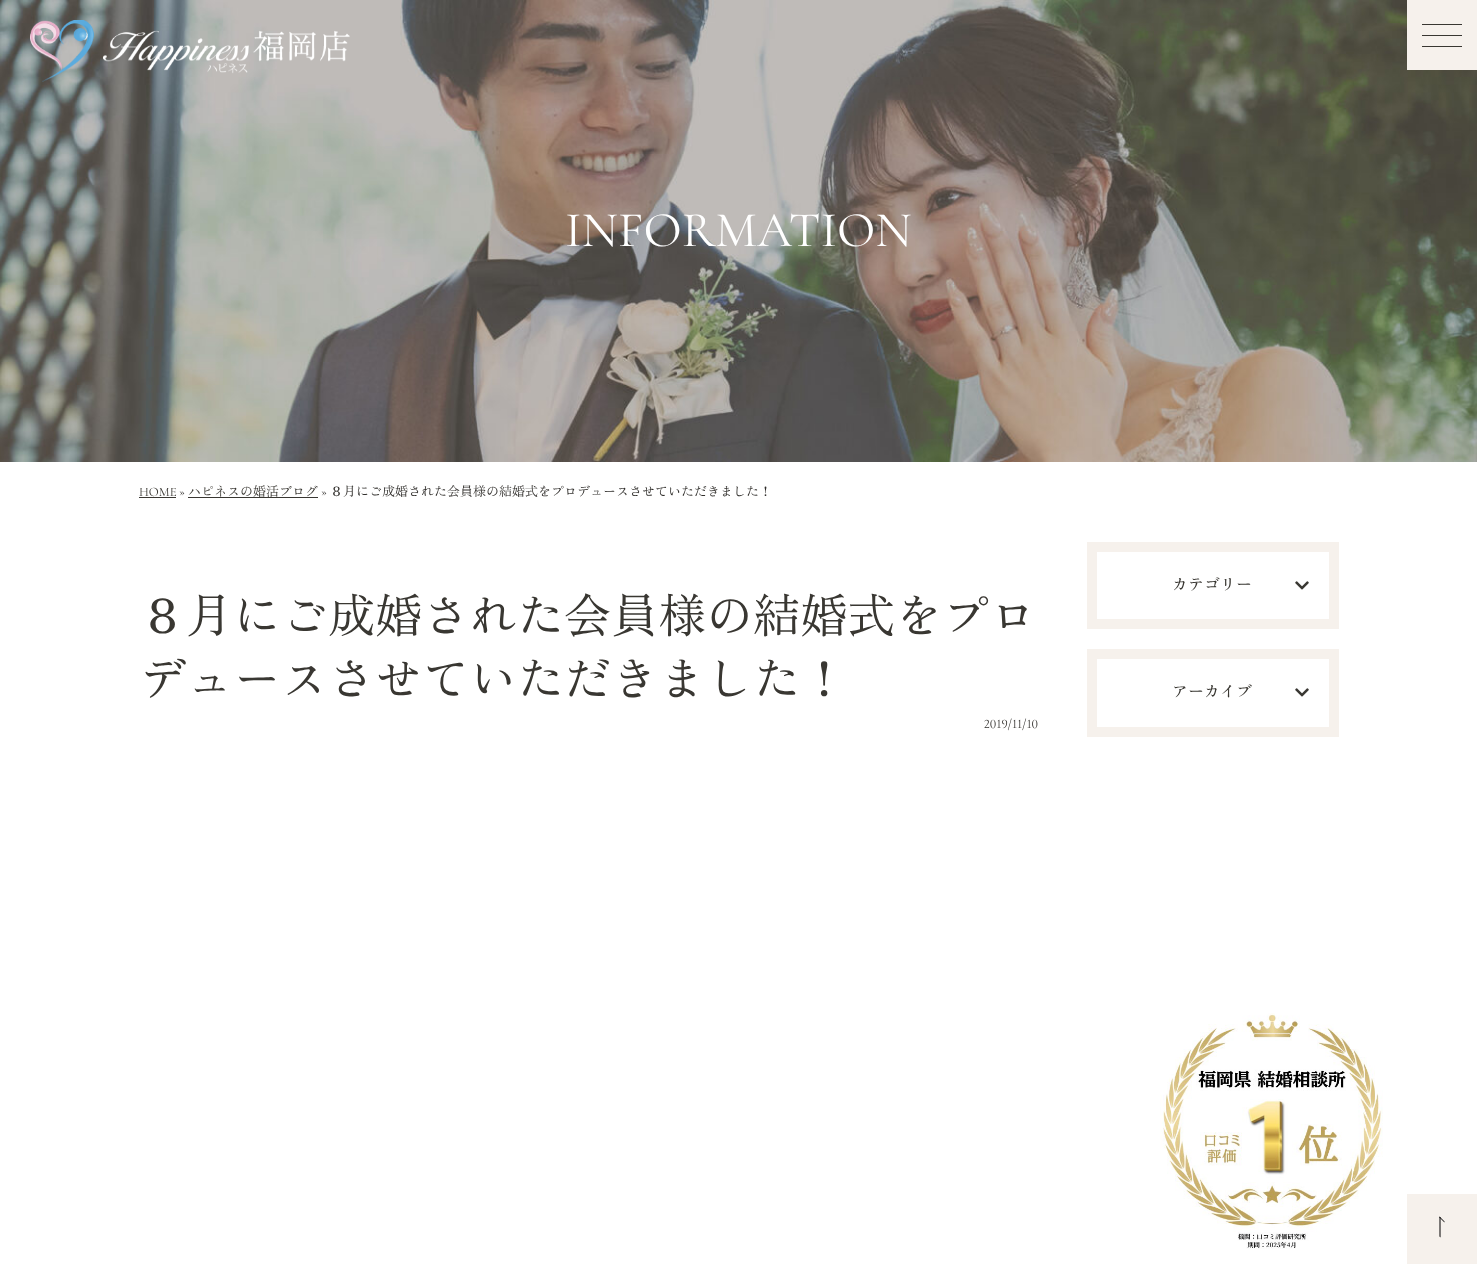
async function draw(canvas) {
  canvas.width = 1477;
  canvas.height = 1264;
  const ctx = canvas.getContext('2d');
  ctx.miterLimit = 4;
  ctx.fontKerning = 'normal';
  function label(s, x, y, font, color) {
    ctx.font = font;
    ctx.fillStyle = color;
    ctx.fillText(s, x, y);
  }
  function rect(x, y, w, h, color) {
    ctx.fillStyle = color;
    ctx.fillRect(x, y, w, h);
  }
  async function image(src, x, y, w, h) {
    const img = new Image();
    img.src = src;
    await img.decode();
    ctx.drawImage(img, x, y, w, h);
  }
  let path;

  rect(0, 0, 1477, 1264, '#fff');
  await image('assets/img2.png', 0, 0, 1477, 462);
  await image('assets/img1.png', 30, 20, 320, 62);
  rect(1407, 0, 70, 70, '#f6f1ec');
  rect(1422, 24, 40, 1, '#393732');
  rect(1422, 35, 40, 1, '#393732');
  rect(1422, 46, 40, 1, '#393732');
  label('INFORMATION', 565, 246, '50px Cormorant Infant', '#fff');
  label('HOME', 139, 496, '13px Cormorant Infant', '#393732');
  rect(139, 497, 37, 1, '#393732');
  label('»', 179, 496, '13px Cormorant Infant', '#312f2c');
  label('ハピネスの婚活ブログ', 188, 496, '13px Zen Old Mincho', '#393732');
  rect(188, 497, 130, 1, '#393732');
  label('»', 321, 496, '13px Cormorant Infant', '#312f2c');
  label('８月にご成婚された会員様の結婚式をプロデュースさせていただきました！', 330, 496, '13px Zen Old Mincho', '#312f2c');
  label('８月にご成婚された会員様の結婚式をプロ', 139, 633, '47.25px Zen Old Mincho', '#393732');
  label('デュースさせていただきました！', 139, 696, '47.25px Zen Old Mincho', '#393732');
  label('2019/11/10', 984, 728, '13px Cormorant Infant', '#312f2c');
  rect(1087, 542, 252, 87, '#f6f1ec');
  rect(1097, 552, 232, 67, '#fff');
  label('カテゴリー', 1172, 590, '500 16px Zen Old Mincho', '#393732');
  await image('assets/img3.png', 1295, 581, 14, 9);
  rect(1087, 649, 252, 88, '#f6f1ec');
  rect(1097, 659, 232, 68, '#fff');
  label('アーカイブ', 1172, 697, '500 16px Zen Old Mincho', '#393732');
  await image('assets/img3.png', 1295, 688, 14, 9);
  await image('assets/img4.png', 1160, 1013, 223, 236);
  rect(1407, 1194, 70, 70, '#f6f1ec');
  ctx.fillStyle = '#000';
  path = new Path2D('M1439.5 1216.5L1444.5 1221.5V1222.5L1439.5 1217.5Z');
  ctx.fill(path);
  path = new Path2D('M1439.5 1216.5L1440.5 1217.5V1237.5L1439.5 1236.5Z');
  ctx.fill(path);
}

draw(document.querySelector('canvas'));
